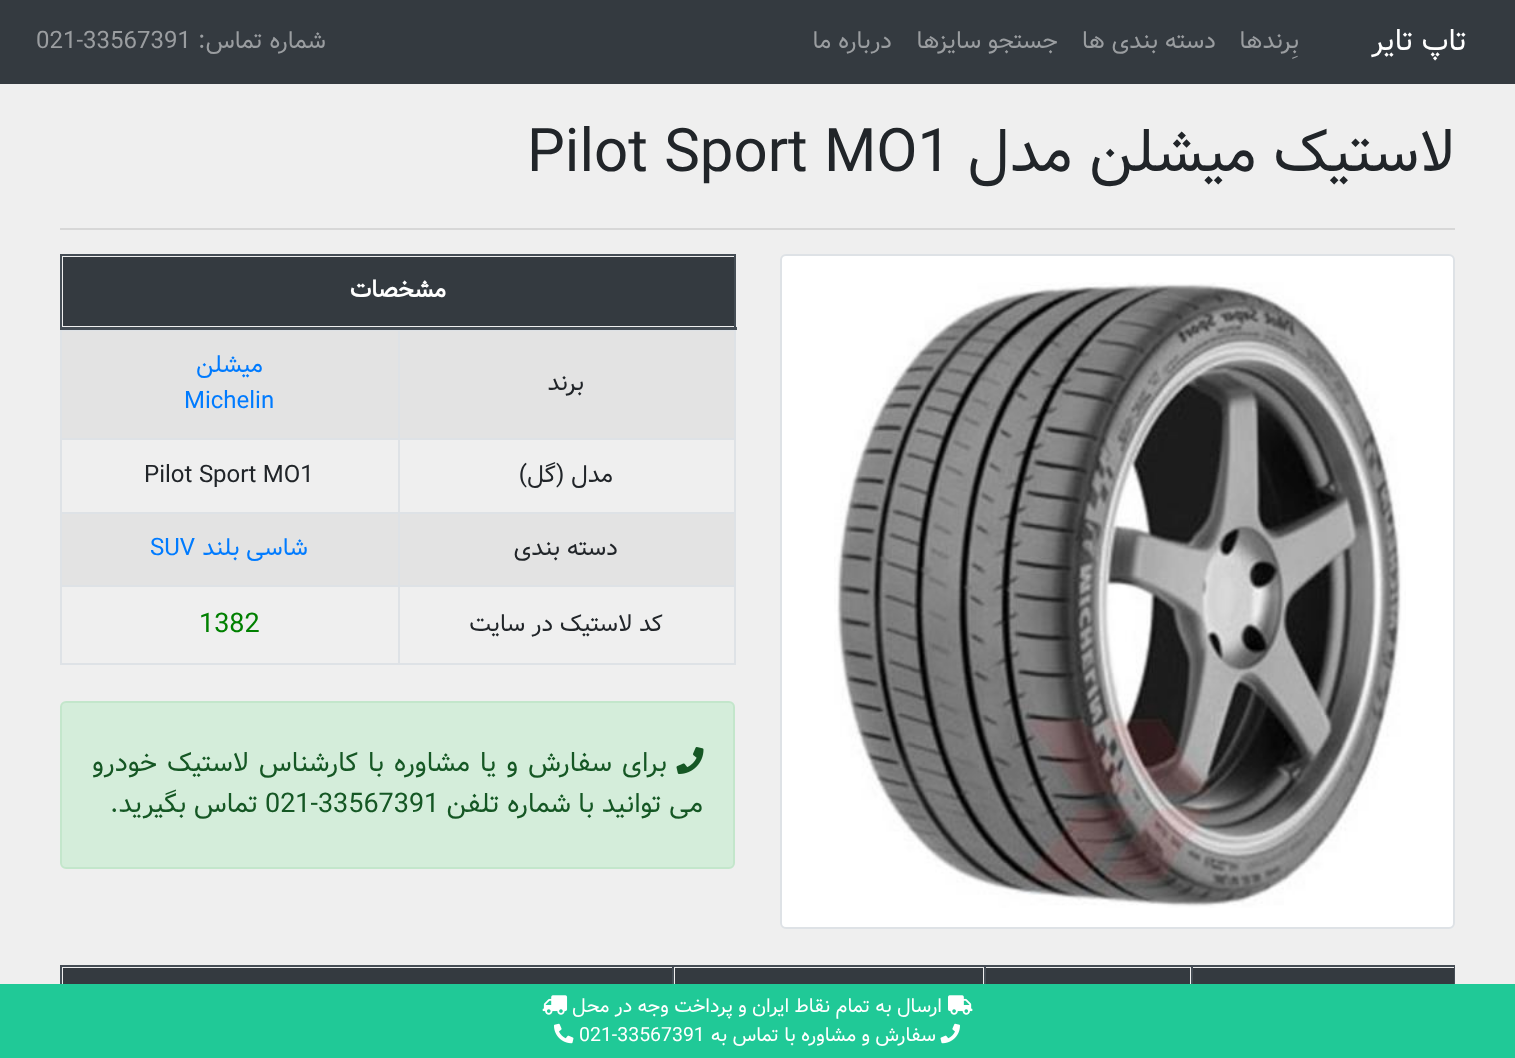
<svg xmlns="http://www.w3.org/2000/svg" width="1515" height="1058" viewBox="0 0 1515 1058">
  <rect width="100%" height="100%" fill="#efefef"/>
  <rect x="0" y="0" width="1515" height="84" fill="#343a40"/>
  <text x="1467" y="50" font-family="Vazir" font-size="30" direction="rtl" fill="#ffffff">تاپ تایر</text>
  <text x="1299" y="48" font-family="Vazir" font-size="24" direction="rtl" fill="#9a9da0">بِرندها</text>
  <text x="1216" y="48" font-family="Vazir" font-size="24" direction="rtl" fill="#9a9da0">دسته بندی ها</text>
  <text x="1058" y="48" font-family="Vazir" font-size="24" direction="rtl" fill="#9a9da0">جستجو سایزها</text>
  <text x="892" y="48" font-family="Vazir" font-size="24" direction="rtl" fill="#9a9da0">درباره ما</text>
  <text x="326" y="48" font-family="Vazir" font-size="24" direction="rtl" fill="#9a9da0">شماره تماس:</text>
  <text x="36" y="48" font-family="Vazir" font-size="24" fill="#9a9da0">021-33567391</text>
  <text x="1455" y="171" font-family="Vazir" font-size="60" direction="rtl" fill="#212529">لاستیک میشلن مدل</text>
  <text x="527" y="171" font-family="Vazir" font-size="60" fill="#212529">Pilot Sport MO1</text>
  <rect x="60" y="228" width="1395" height="2" fill="#d7d7d7"/>
  <rect x="781" y="255" width="673" height="673" rx="5" fill="#ffffff" stroke="#dee2e6" stroke-width="2"/>
  <image x="834" y="282" width="572" height="626" href="img1.png"/>
  <rect x="734" y="330" width="2" height="335" fill="#dee2e6"/>
  <rect x="60" y="663" width="675" height="2" fill="#dee2e6"/>
  <rect x="60" y="331" width="2" height="334" fill="#dee2e6"/>
  <rect x="63" y="257" width="671" height="69" fill="#343a40"/>
  <rect x="60" y="254" width="675" height="2" fill="#454d55"/>
  <rect x="734" y="254" width="2" height="76" fill="#454d55"/>
  <rect x="60" y="254" width="2" height="76" fill="#454d55"/>
  <rect x="62" y="331" width="672" height="107" fill="#e3e3e3"/>
  <rect x="60" y="330" width="339" height="1" fill="#dee2e6"/>
  <rect x="60" y="438" width="339" height="2" fill="#dee2e6"/>
  <rect x="60" y="512" width="339" height="2" fill="#dee2e6"/>
  <rect x="62" y="514" width="672" height="71" fill="#e3e3e3"/>
  <rect x="60" y="585" width="339" height="2" fill="#dee2e6"/>
  <rect x="398" y="585" width="2" height="80" fill="#dee2e6"/>
  <rect x="398" y="585" width="337" height="2" fill="#dee2e6"/>
  <rect x="398" y="512" width="2" height="75" fill="#dee2e6"/>
  <rect x="398" y="512" width="337" height="2" fill="#dee2e6"/>
  <rect x="398" y="438" width="2" height="75" fill="#dee2e6"/>
  <rect x="398" y="438" width="337" height="2" fill="#dee2e6"/>
  <rect x="398" y="329" width="2" height="111" fill="#dee2e6"/>
  <rect x="60" y="327" width="677" height="3" fill="#454d55"/>
  <text x="446" y="297" font-family="Vazir" font-size="24" font-weight="bold" direction="rtl" fill="#ffffff">مشخصات</text>
  <rect x="398" y="330" width="337" height="1" fill="#dee2e6"/>
  <text x="584" y="390" font-family="Vazir" font-size="24" direction="rtl" fill="#212529">برند</text>
  <text x="263" y="372" font-family="Vazir" font-size="24" direction="rtl" fill="#007bff">میشلن</text>
  <text x="184" y="408" font-family="Vazir" font-size="24" fill="#007bff">Michelin</text>
  <text x="613" y="482" font-family="Vazir" font-size="24" direction="rtl" fill="#212529">مدل (گل)</text>
  <text x="144" y="482" font-family="Vazir" font-size="24" fill="#212529">Pilot Sport MO1</text>
  <text x="618" y="555" font-family="Vazir" font-size="24" direction="rtl" fill="#212529">دسته بندی</text>
  <text x="308" y="555" font-family="Vazir" font-size="24" direction="rtl" fill="#007bff">شاسی بلند</text>
  <text x="150" y="555" font-family="Vazir" font-size="24" fill="#007bff">SUV</text>
  <text x="663" y="631" font-family="Vazir" font-size="24" direction="rtl" fill="#212529">کد لاستیک در سایت</text>
  <text x="199" y="632" font-family="Vazir" font-size="27" fill="#008000">1382</text>
  <rect x="61" y="702" width="673" height="166" rx="5" fill="#d4edda" stroke="#c3e6cb" stroke-width="2"/>
  <image x="676" y="747" width="28" height="27" href="img2.png"/>
  <text x="667" y="771" word-spacing="2.5" font-family="Vazir" font-size="27" direction="rtl" fill="#155724">برای سفارش و یا مشاوره با کارشناس لاستیک خودرو</text>
  <text x="703" y="812" font-family="Vazir" font-size="27" direction="rtl" fill="#155724">می توانید با شماره تلفن </text>
  <text x="265" y="812" font-family="Vazir" font-size="27" fill="#155724">021-33567391</text>
  <text x="258" y="812" font-family="Vazir" font-size="27" direction="rtl" fill="#155724">تماس بگیرید.</text>
  <rect x="1193" y="968" width="261" height="16" fill="#343a40"/>
  <rect x="60" y="965" width="614" height="2" fill="#454d55"/>
  <rect x="672" y="965" width="2" height="19" fill="#454d55"/>
  <rect x="672" y="965" width="314" height="2" fill="#454d55"/>
  <rect x="984" y="965" width="2" height="19" fill="#454d55"/>
  <rect x="984" y="965" width="209" height="2" fill="#454d55"/>
  <rect x="1191" y="965" width="2" height="19" fill="#454d55"/>
  <rect x="1191" y="965" width="264" height="2" fill="#454d55"/>
  <rect x="1454" y="965" width="1" height="19" fill="#454d55"/>
  <rect x="986" y="968" width="204" height="16" fill="#343a40"/>
  <rect x="675" y="968" width="308" height="16" fill="#343a40"/>
  <rect x="63" y="968" width="609" height="16" fill="#343a40"/>
  <rect x="60" y="965" width="2" height="19" fill="#454d55"/>
  <rect x="0" y="984" width="1515" height="74" fill="#20c997"/>
  <image x="948" y="995" width="25" height="20" href="img3.png"/>
  <text x="942" y="1012" font-family="Vazir" font-size="19.5" direction="rtl" fill="#ffffff">ارسال به تمام نقاط ایران و پرداخت وجه در محل</text>
  <image x="542" y="995" width="26" height="20" href="img4.png"/>
  <image x="940" y="1023" width="20" height="21" href="img5.png"/>
  <text x="936" y="1041" font-family="Vazir" font-size="19.5" direction="rtl" fill="#ffffff">سفارش و مشاوره با تماس به </text>
  <text x="579" y="1041" font-family="Vazir" font-size="19.5" fill="#ffffff">021-33567391</text>
  <image x="554" y="1023" width="20" height="21" href="img6.png"/>
</svg>
